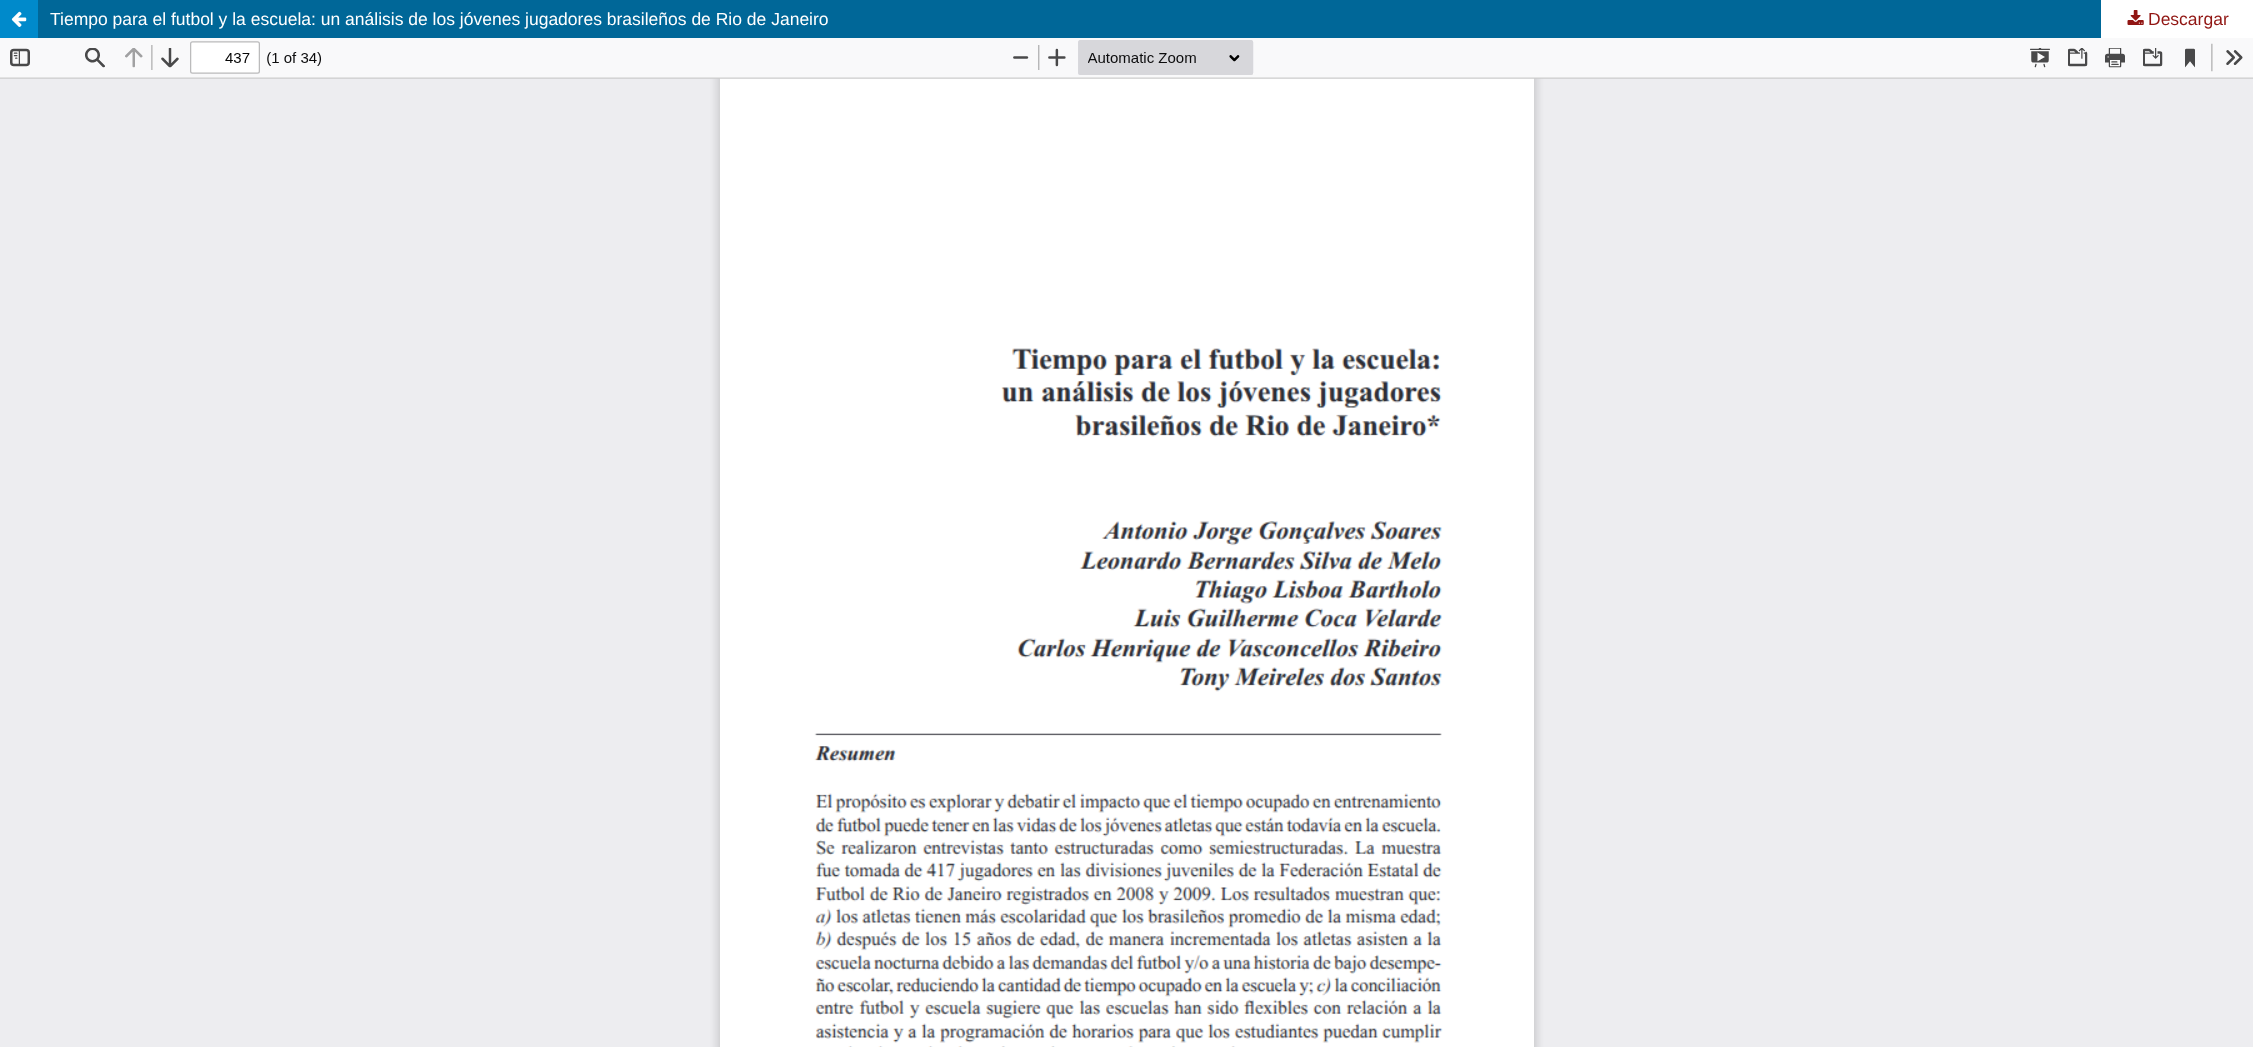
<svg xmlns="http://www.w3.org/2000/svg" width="2253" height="1047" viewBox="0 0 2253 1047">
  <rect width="100%" height="100%" fill="#ffffff"/>
  <rect x="38" y="0" width="2063" height="38" fill="#006798"/>
  <rect x="0" y="0" width="38" height="38" fill="#008acb"/>
  <image x="11" y="11" width="16" height="16" href="img1.png"/>
  <text x="50" y="25" font-family="Liberation Sans" font-size="17.5" fill="#ffffff">Tiempo para el futbol y la escuela: un análisis de los jóvenes jugadores brasileños de Rio de Janeiro</text>
  <image x="2127" y="10" width="17" height="15" href="img2.png"/>
  <text x="2148" y="25" font-family="Liberation Sans" font-size="17.5" fill="#911613">Descargar</text>
  <image x="0" y="38" width="2253" height="1009" href="img3.png"/>
</svg>
